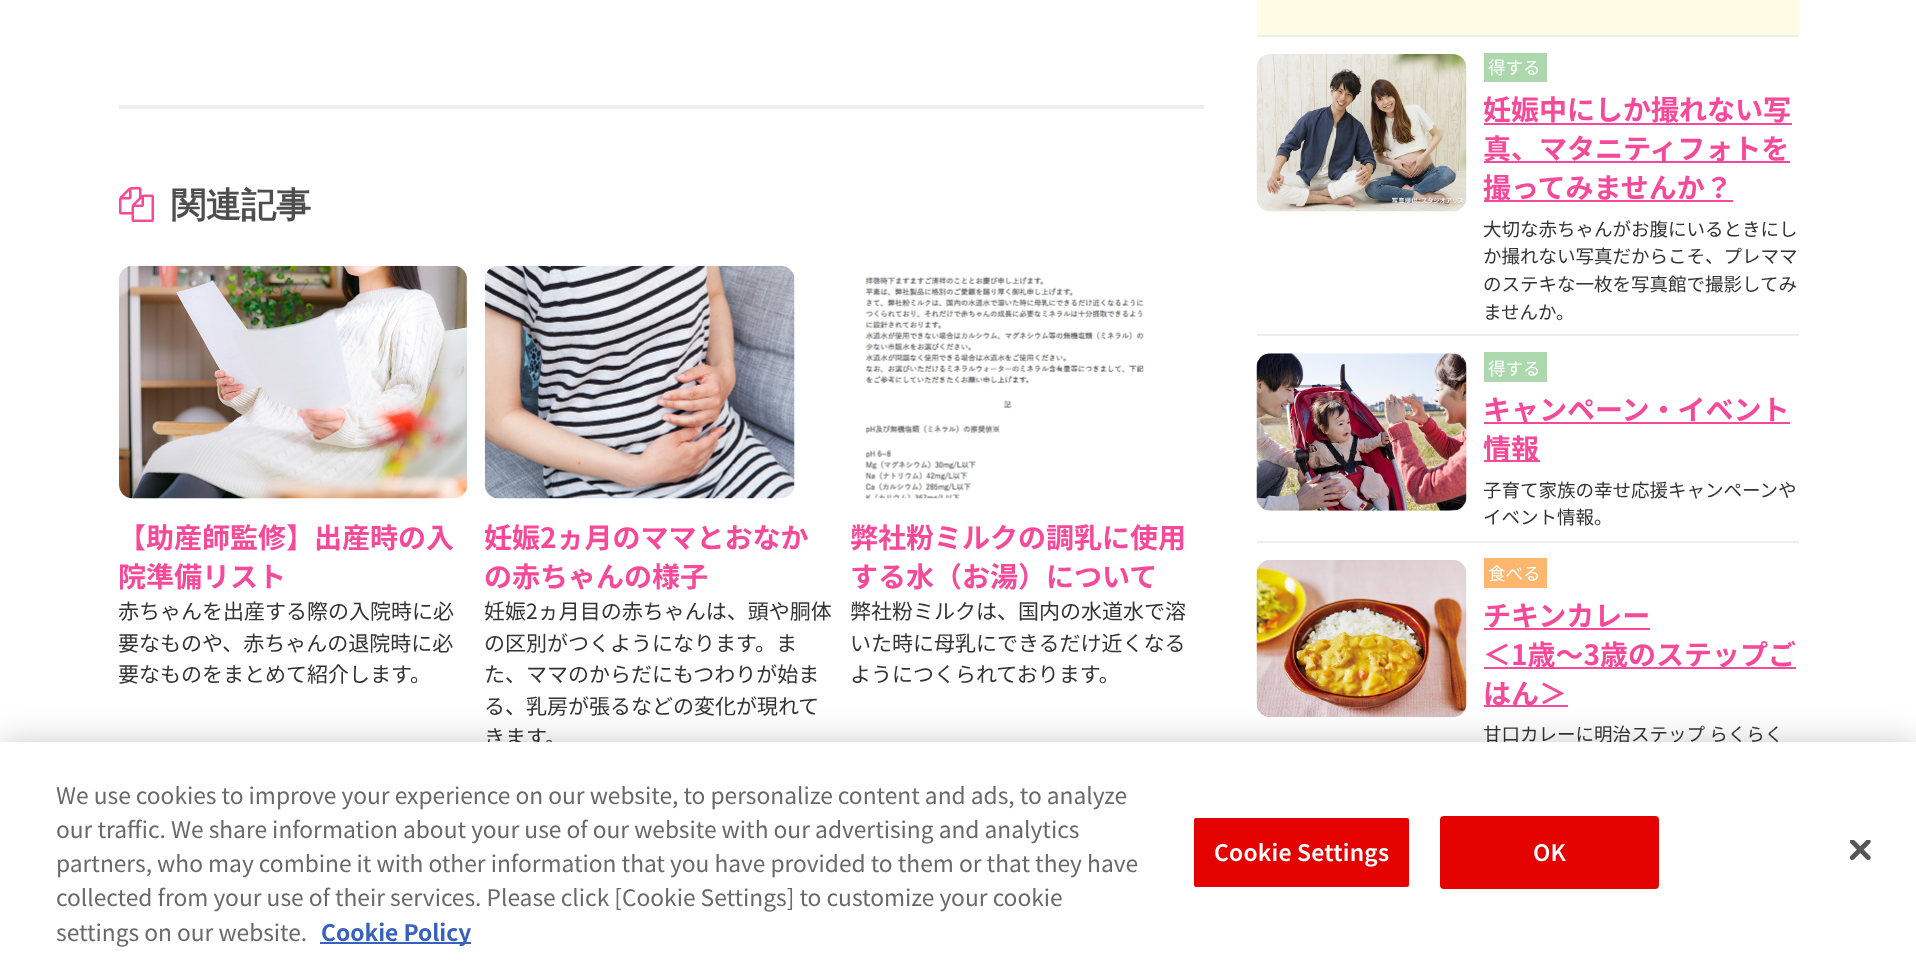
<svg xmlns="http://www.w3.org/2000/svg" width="1916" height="965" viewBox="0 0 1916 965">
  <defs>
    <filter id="blur1" x="-50%" y="-200%" width="200%" height="500%"><feGaussianBlur stdDeviation="16"/></filter>
  </defs>
  <rect width="100%" height="100%" fill="#ffffff"/>
  <rect x="119" y="105" width="1085" height="4" fill="#eeeeee"/>
  <image x="119" y="187" width="35" height="35" href="img1.png"/>
  <text x="171" y="217" font-family="WenQuanYi Zen Hei" font-size="35" font-weight="bold" fill="#4e4e4e">関連記事</text>
  <image x="119" y="265" width="349" height="234" href="img2.png"/>
  <text x="118" y="548" font-family="Noto Sans JP" font-size="28" font-weight="bold" fill="#f74999">【助産師監修】出産時の入</text>
  <text x="118" y="587" font-family="Noto Sans JP" font-size="28" font-weight="bold" fill="#f74999">院準備リスト</text>
  <text x="118" y="619" font-family="Noto Sans JP" font-size="21" fill="#343434">赤ちゃんを出産する際の入院時に必</text>
  <text x="118" y="651" font-family="Noto Sans JP" font-size="21" fill="#343434">要なものや、赤ちゃんの退院時に必</text>
  <text x="118" y="682" font-family="Noto Sans JP" font-size="21" fill="#343434">要なものをまとめて紹介します。</text>
  <image x="484" y="265" width="311" height="234" href="img3.png"/>
  <text x="484" y="548" font-family="Noto Sans JP" font-size="28" font-weight="bold" fill="#f74999">妊娠2ヵ月のママとおなか</text>
  <text x="484" y="587" font-family="Noto Sans JP" font-size="28" font-weight="bold" fill="#f74999">の赤ちゃんの様子</text>
  <text x="484" y="619" font-family="Noto Sans JP" font-size="21" fill="#343434">妊娠2ヵ月目の赤ちゃんは、頭や胴体</text>
  <text x="484" y="651" font-family="Noto Sans JP" font-size="21" fill="#343434">の区別がつくようになります。ま</text>
  <text x="484" y="682" font-family="Noto Sans JP" font-size="21" fill="#343434">た、ママのからだにもつわりが始ま</text>
  <text x="484" y="714" font-family="Noto Sans JP" font-size="21" fill="#343434">る、乳房が張るなどの変化が現れて</text>
  <text x="484" y="745" font-family="Noto Sans JP" font-size="21" fill="#343434">きます。</text>
  <image x="865" y="276" width="280" height="223" href="img4.png"/>
  <text x="850" y="548" font-family="Noto Sans JP" font-size="28" font-weight="bold" fill="#f74999">弊社粉ミルクの調乳に使用</text>
  <text x="850" y="587" font-family="Noto Sans JP" font-size="28" font-weight="bold" fill="#f74999">する水（お湯）について</text>
  <text x="850" y="619" font-family="Noto Sans JP" font-size="21" fill="#343434">弊社粉ミルクは、国内の水道水で溶</text>
  <text x="850" y="651" font-family="Noto Sans JP" font-size="21" fill="#343434">いた時に母乳にできるだけ近くなる</text>
  <text x="850" y="682" font-family="Noto Sans JP" font-size="21" fill="#343434">ようにつくられております。</text>
  <rect x="1257" y="0" width="542" height="35" fill="#fffbe5"/>
  <rect x="1257" y="35" width="542" height="2" fill="#eeeeee"/>
  <rect x="1257" y="334" width="542" height="2" fill="#eeeeee"/>
  <image x="1256" y="54" width="211" height="158" href="img5.png"/>
  <rect x="1484" y="53" width="63" height="29" fill="#add8ae"/>
  <text x="1488" y="74" font-family="Noto Sans JP" font-size="17.5" fill="#ffffff">得する</text>
  <text x="1483" y="120" font-family="Noto Sans JP" font-size="28" font-weight="bold" fill="#f74999">妊娠中にしか撮れない写</text>
  <rect x="1484" y="123" width="308" height="2" fill="#f74999"/>
  <rect x="1484" y="161" width="306" height="2" fill="#f74999"/>
  <text x="1483" y="159" font-family="Noto Sans JP" font-size="28" font-weight="bold" fill="#f74999">真、マタニティフォトを</text>
  <rect x="1484" y="200" width="249" height="2" fill="#f74999"/>
  <text x="1483" y="198" font-family="Noto Sans JP" font-size="28" font-weight="bold" fill="#f74999">撮ってみませんか？</text>
  <text x="1483" y="236" font-family="Noto Sans JP" font-size="18.5" fill="#343434">大切な赤ちゃんがお腹にいるときにし</text>
  <text x="1483" y="263" font-family="Noto Sans JP" font-size="18.5" fill="#343434">か撮れない写真だからこそ、プレママ</text>
  <text x="1483" y="291" font-family="Noto Sans JP" font-size="18.5" fill="#343434">のステキな一枚を写真館で撮影してみ</text>
  <text x="1483" y="319" font-family="Noto Sans JP" font-size="18.5" fill="#343434">ませんか。</text>
  <rect x="1257" y="541" width="542" height="2" fill="#eeeeee"/>
  <image x="1256" y="353" width="211" height="158" href="img6.png"/>
  <rect x="1484" y="352" width="63" height="30" fill="#add8ae"/>
  <text x="1488" y="375" font-family="Noto Sans JP" font-size="17.5" fill="#ffffff">得する</text>
  <rect x="1484" y="422" width="306" height="2" fill="#f74999"/>
  <text x="1483" y="420" font-family="Noto Sans JP" font-size="28" font-weight="bold" fill="#f74999">キャンペーン・イベント</text>
  <rect x="1484" y="460" width="56" height="2" fill="#f74999"/>
  <text x="1483" y="459" font-family="Noto Sans JP" font-size="28" font-weight="bold" fill="#f74999">情報</text>
  <text x="1483" y="497" font-family="Noto Sans JP" font-size="18.5" fill="#343434">子育て家族の幸せ応援キャンペーンや</text>
  <text x="1483" y="524" font-family="Noto Sans JP" font-size="18.5" fill="#343434">イベント情報。</text>
  <image x="1256" y="560" width="211" height="158" href="img7.png"/>
  <rect x="1484" y="558" width="63" height="30" fill="#ffb66e"/>
  <text x="1488" y="580" font-family="Noto Sans JP" font-size="17.5" fill="#ffffff">食べる</text>
  <text x="1483" y="626" font-family="Noto Sans JP" font-size="28" font-weight="bold" fill="#f74999">チキンカレー</text>
  <rect x="1484" y="628" width="166" height="2" fill="#f74999"/>
  <rect x="1484" y="667" width="312" height="2" fill="#f74999"/>
  <text x="1483" y="665" font-family="Noto Sans JP" font-size="28" font-weight="bold" fill="#f74999">＜1歳〜3歳のステップご</text>
  <rect x="1484" y="705" width="84" height="2" fill="#f74999"/>
  <text x="1483" y="704" font-family="Noto Sans JP" font-size="28" font-weight="bold" fill="#f74999">はん＞</text>
  <text x="1483" y="741" font-family="Noto Sans JP" font-size="18.5" fill="#343434">甘口カレーに明治ステップ らくらく</text>
  <rect x="0" y="742" width="1916" height="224" fill="#000000" fill-opacity="0.2" filter="url(#blur1)"/>
  <rect x="0" y="742" width="1916" height="223" fill="#ffffff"/>
  <text x="56" y="804" font-family="Noto Sans JP" font-size="22.75" fill="#696969">We use cookies to improve your experience on our website, to personalize content and ads, to analyze</text>
  <text x="56" y="838" font-family="Noto Sans JP" font-size="22.75" fill="#696969">our traffic. We share information about your use of our website with our advertising and analytics</text>
  <text x="56" y="872" font-family="Noto Sans JP" font-size="22.75" fill="#696969">partners, who may combine it with other information that you have provided to them or that they have</text>
  <text x="56" y="906" font-family="Noto Sans JP" font-size="22.75" fill="#696969">collected from your use of their services. Please click [Cookie Settings] to customize your cookie</text>
  <text x="56" y="941" font-family="Noto Sans JP" font-size="22.75" fill="#696969">settings on our website.</text>
  <rect x="320" y="942" width="151" height="2" fill="#3860be"/>
  <text x="321" y="941" font-family="Noto Sans JP" font-size="22.75" font-weight="bold" fill="#3860be">Cookie Policy</text>
  <rect x="1193" y="817" width="217" height="71" rx="3" fill="#e30200" stroke="#ffffff" stroke-width="2"/>
  <text x="1214" y="861" font-family="Noto Sans JP" font-size="22.75" font-weight="600" letter-spacing="0.25" fill="#ffffff">Cookie Settings</text>
  <rect x="1441" y="817" width="217" height="71" rx="3" fill="#e30200" stroke="#e30200" stroke-width="2"/>
  <text x="1533" y="861" font-family="Noto Sans JP" font-size="22.75" font-weight="600" letter-spacing="0.25" fill="#ffffff">OK</text>
  <image x="1850" y="840" width="21" height="21" href="img8.png"/>
</svg>
